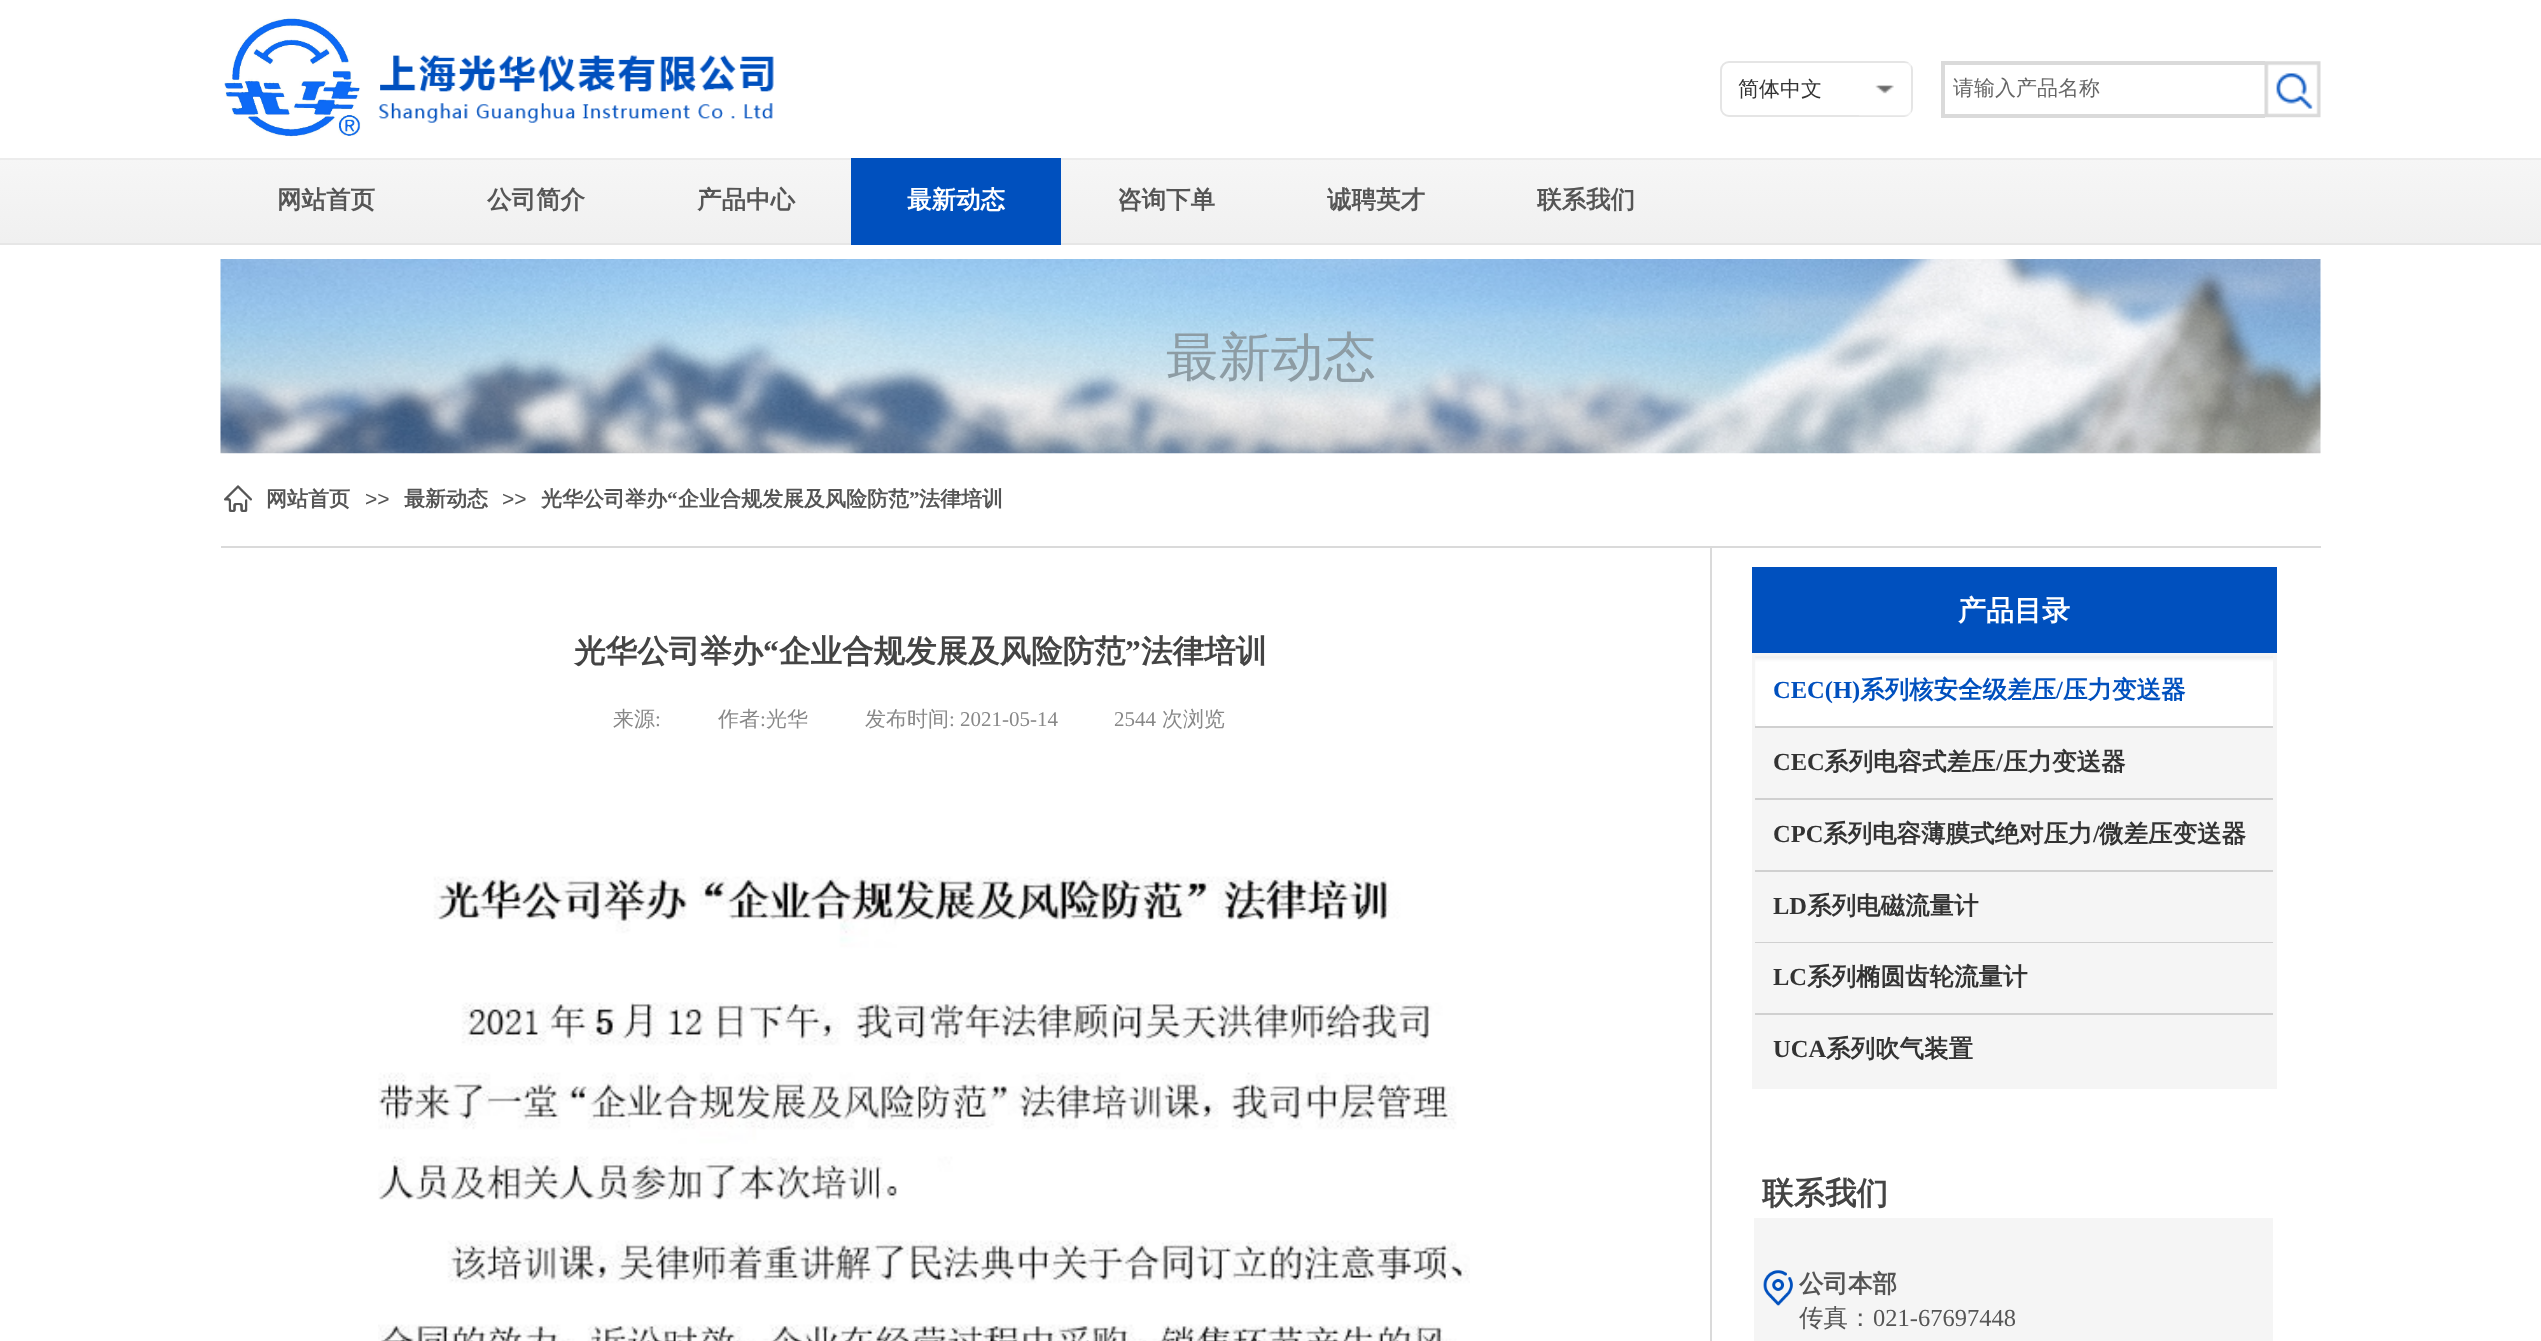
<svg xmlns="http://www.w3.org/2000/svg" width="2541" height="1341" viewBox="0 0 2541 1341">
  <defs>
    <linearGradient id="g1" gradientUnits="userSpaceOnUse" x1="1271" y1="243" x2="1271" y2="159"><stop offset="0" stop-color="#f0f0f0"/><stop offset="1" stop-color="#f6f6f6"/></linearGradient>
  </defs>
  <rect width="100%" height="100%" fill="#ffffff"/>
  <image x="224" y="17" width="137" height="121" href="img1.png"/>
  <image x="378" y="55" width="396" height="68" href="img2.png"/>
  <rect x="1721" y="62" width="191" height="54" rx="8" fill="none" stroke="#e5e5e5" stroke-width="2"/>
  <text x="1738" y="96" font-family="WenQuanYi Zen Hei" font-size="21" font-weight="500" fill="#333333">简体中文</text>
  <image x="1859" y="63" width="52" height="53" href="img3.png"/>
  <rect x="1941" y="61" width="324" height="4" fill="#dadada"/>
  <rect x="1941" y="114" width="324" height="4" fill="#dadada"/>
  <rect x="1941" y="61" width="4" height="56" fill="#dadada"/>
  <text x="1953" y="95" font-family="WenQuanYi Zen Hei" font-size="21" font-weight="500" fill="#666666">请输入产品名称</text>
  <image x="2264" y="61" width="57" height="57" href="img4.png"/>
  <rect x="0" y="160" width="2541" height="83" fill="url(#g1)"/>
  <rect x="0" y="158" width="2541" height="2" fill="#ececec"/>
  <rect x="0" y="243" width="2541" height="2" fill="#e6e6e6"/>
  <text x="277" y="208" font-family="WenQuanYi Zen Hei" font-size="24.5" font-weight="bold" fill="#555555">网站首页</text>
  <text x="487" y="208" font-family="WenQuanYi Zen Hei" font-size="24.5" font-weight="bold" fill="#555555">公司简介</text>
  <text x="697" y="208" font-family="WenQuanYi Zen Hei" font-size="24.5" font-weight="bold" fill="#555555">产品中心</text>
  <rect x="851" y="158" width="210" height="87" fill="#0050be"/>
  <text x="907" y="208" font-family="WenQuanYi Zen Hei" font-size="24.5" font-weight="bold" fill="#ffffff">最新动态</text>
  <text x="1117" y="208" font-family="WenQuanYi Zen Hei" font-size="24.5" font-weight="bold" fill="#555555">咨询下单</text>
  <text x="1327" y="208" font-family="WenQuanYi Zen Hei" font-size="24.5" font-weight="bold" fill="#555555">诚聘英才</text>
  <text x="1537" y="208" font-family="WenQuanYi Zen Hei" font-size="24.5" font-weight="bold" fill="#555555">联系我们</text>
  <image x="220" y="259" width="2101" height="195" href="img5.png"/>
  <text x="1166" y="375" font-family="WenQuanYi Zen Hei" font-size="52.5" font-weight="500" fill="#8d9ca4">最新动态</text>
  <image x="224" y="485" width="28" height="27" href="img6.png"/>
  <text x="266" y="506" font-family="WenQuanYi Zen Hei" font-size="21" font-weight="bold" fill="#555555">网站首页</text>
  <text x="365" y="506" font-family="Liberation Sans" font-size="21" fill="#555555">&gt;&gt;</text>
  <text x="404" y="506" font-family="WenQuanYi Zen Hei" font-size="21" font-weight="bold" fill="#555555">最新动态</text>
  <text x="502" y="506" font-family="Liberation Sans" font-size="21" fill="#555555">&gt;&gt;</text>
  <text x="541" y="506" font-family="WenQuanYi Zen Hei" font-size="21" font-weight="bold" fill="#555555">光华公司举办</text>
  <text x="667" y="506" font-family="Liberation Serif" font-size="21" font-weight="bold" fill="#555555">“</text>
  <text x="678" y="506" font-family="WenQuanYi Zen Hei" font-size="21" font-weight="bold" fill="#555555">企业合规发展及风险防范</text>
  <text x="909" y="506" font-family="Liberation Serif" font-size="21" font-weight="bold" fill="#555555">”</text>
  <text x="919" y="506" font-family="WenQuanYi Zen Hei" font-size="21" font-weight="bold" fill="#555555">法律培训</text>
  <rect x="221" y="546" width="2100" height="2" fill="#dadada"/>
  <rect x="1710" y="546" width="2" height="795" fill="#dadada"/>
  <rect x="1752" y="567" width="525" height="86" fill="#0050be"/>
  <text x="1958" y="620" font-family="WenQuanYi Zen Hei" font-size="28" font-weight="bold" fill="#ffffff">产品目录</text>
  <text x="574" y="662" font-family="WenQuanYi Zen Hei" font-size="31.5" font-weight="bold" fill="#444444">光华公司举办</text>
  <text x="763" y="662" font-family="Liberation Serif" font-size="31.5" font-weight="bold" fill="#444444">“</text>
  <text x="779" y="662" font-family="WenQuanYi Zen Hei" font-size="31.5" font-weight="bold" fill="#444444">企业合规发展及风险防范</text>
  <text x="1125" y="662" font-family="Liberation Serif" font-size="31.5" font-weight="bold" fill="#444444">”</text>
  <text x="1141" y="662" font-family="WenQuanYi Zen Hei" font-size="31.5" font-weight="bold" fill="#444444">法律培训</text>
  <text x="613" y="726" font-family="WenQuanYi Zen Hei" font-size="21" font-weight="500" fill="#888888">来源</text>
  <text x="655" y="726" font-family="Liberation Serif" font-size="21" fill="#888888">:</text>
  <text x="718" y="726" font-family="WenQuanYi Zen Hei" font-size="21" font-weight="500" fill="#888888">作者</text>
  <text x="760" y="726" font-family="Liberation Serif" font-size="21" fill="#888888">:</text>
  <text x="766" y="726" font-family="WenQuanYi Zen Hei" font-size="21" font-weight="500" fill="#888888">光华</text>
  <text x="865" y="726" font-family="WenQuanYi Zen Hei" font-size="21" font-weight="500" fill="#888888">发布时间</text>
  <text x="949" y="726" font-family="Liberation Serif" font-size="21" fill="#888888">: 2021-05-14</text>
  <text x="1114" y="726" font-family="Liberation Serif" font-size="21" fill="#888888">2544</text>
  <text x="1162" y="726" font-family="WenQuanYi Zen Hei" font-size="21" font-weight="500" fill="#888888">次浏览</text>
  <image x="378" y="876" width="1092" height="465" href="img7.png"/>
  <rect x="1754" y="655" width="521" height="432" fill="none" stroke="#f5f5f5" stroke-width="4"/>
  <image x="1755" y="656" width="518" height="68" href="img8.png"/>
  <rect x="1755" y="726" width="518" height="2" fill="#d0d0d0"/>
  <text x="1773" y="698" font-family="Liberation Serif" font-size="24.5" font-weight="bold" fill="#0050be">CEC(H)</text>
  <text x="1860" y="698" font-family="WenQuanYi Zen Hei" font-size="24.5" font-weight="bold" fill="#0050be">系列核安全级差压</text>
  <text x="2056" y="698" font-family="Liberation Serif" font-size="24.5" font-weight="bold" fill="#0050be">/</text>
  <text x="2063" y="698" font-family="WenQuanYi Zen Hei" font-size="24.5" font-weight="bold" fill="#0050be">压力变送器</text>
  <rect x="1756" y="728" width="517" height="70" fill="#f5f5f5"/>
  <rect x="1755" y="798" width="518" height="2" fill="#d0d0d0"/>
  <text x="1773" y="770" font-family="Liberation Serif" font-size="24.5" font-weight="bold" fill="#333333">CEC</text>
  <text x="1824" y="770" font-family="WenQuanYi Zen Hei" font-size="24.5" font-weight="bold" fill="#333333">系列电容式差压</text>
  <text x="1996" y="770" font-family="Liberation Serif" font-size="24.5" font-weight="bold" fill="#333333">/</text>
  <text x="2003" y="770" font-family="WenQuanYi Zen Hei" font-size="24.5" font-weight="bold" fill="#333333">压力变送器</text>
  <rect x="1756" y="800" width="517" height="70" fill="#f5f5f5"/>
  <rect x="1755" y="870" width="518" height="2" fill="#d0d0d0"/>
  <text x="1773" y="842" font-family="Liberation Serif" font-size="24.5" font-weight="bold" fill="#333333">CPC</text>
  <text x="1823" y="842" font-family="WenQuanYi Zen Hei" font-size="24.5" font-weight="bold" fill="#333333">系列电容薄膜式绝对压力</text>
  <text x="2093" y="842" font-family="Liberation Serif" font-size="24.5" font-weight="bold" fill="#333333">/</text>
  <text x="2099" y="842" font-family="WenQuanYi Zen Hei" font-size="24.5" font-weight="bold" fill="#333333">微差压变送器</text>
  <rect x="1756" y="872" width="517" height="70" fill="#f5f5f5"/>
  <rect x="1755" y="942" width="518" height="1" fill="#d0d0d0"/>
  <text x="1773" y="914" font-family="Liberation Serif" font-size="24.5" font-weight="bold" fill="#333333">LD</text>
  <text x="1807" y="914" font-family="WenQuanYi Zen Hei" font-size="24.5" font-weight="bold" fill="#333333">系列电磁流量计</text>
  <rect x="1756" y="943" width="517" height="70" fill="#f5f5f5"/>
  <rect x="1755" y="1013" width="518" height="2" fill="#d0d0d0"/>
  <text x="1773" y="985" font-family="Liberation Serif" font-size="24.5" font-weight="bold" fill="#333333">LC</text>
  <text x="1807" y="985" font-family="WenQuanYi Zen Hei" font-size="24.5" font-weight="bold" fill="#333333">系列椭圆齿轮流量计</text>
  <rect x="1756" y="1015" width="517" height="70" fill="#f5f5f5"/>
  <text x="1773" y="1057" font-family="Liberation Serif" font-size="24.5" font-weight="bold" fill="#333333">UCA</text>
  <text x="1826" y="1057" font-family="WenQuanYi Zen Hei" font-size="24.5" font-weight="bold" fill="#333333">系列吹气装置</text>
  <text x="1762" y="1204" font-family="WenQuanYi Zen Hei" font-size="31.5" font-weight="bold" fill="#444444">联系我们</text>
  <rect x="1754" y="1218" width="519" height="123" fill="#f5f5f5"/>
  <image x="1763" y="1270" width="30" height="36" href="img9.png"/>
  <text x="1799" y="1292" font-family="WenQuanYi Zen Hei" font-size="24.5" font-weight="bold" fill="#555555">公司本部</text>
  <text x="1799" y="1326" font-family="WenQuanYi Zen Hei" font-size="24.5" font-weight="500" fill="#555555">传真：</text>
  <text x="1873" y="1326" font-family="Liberation Serif" font-size="24.5" fill="#555555">021-67697448</text>
</svg>
